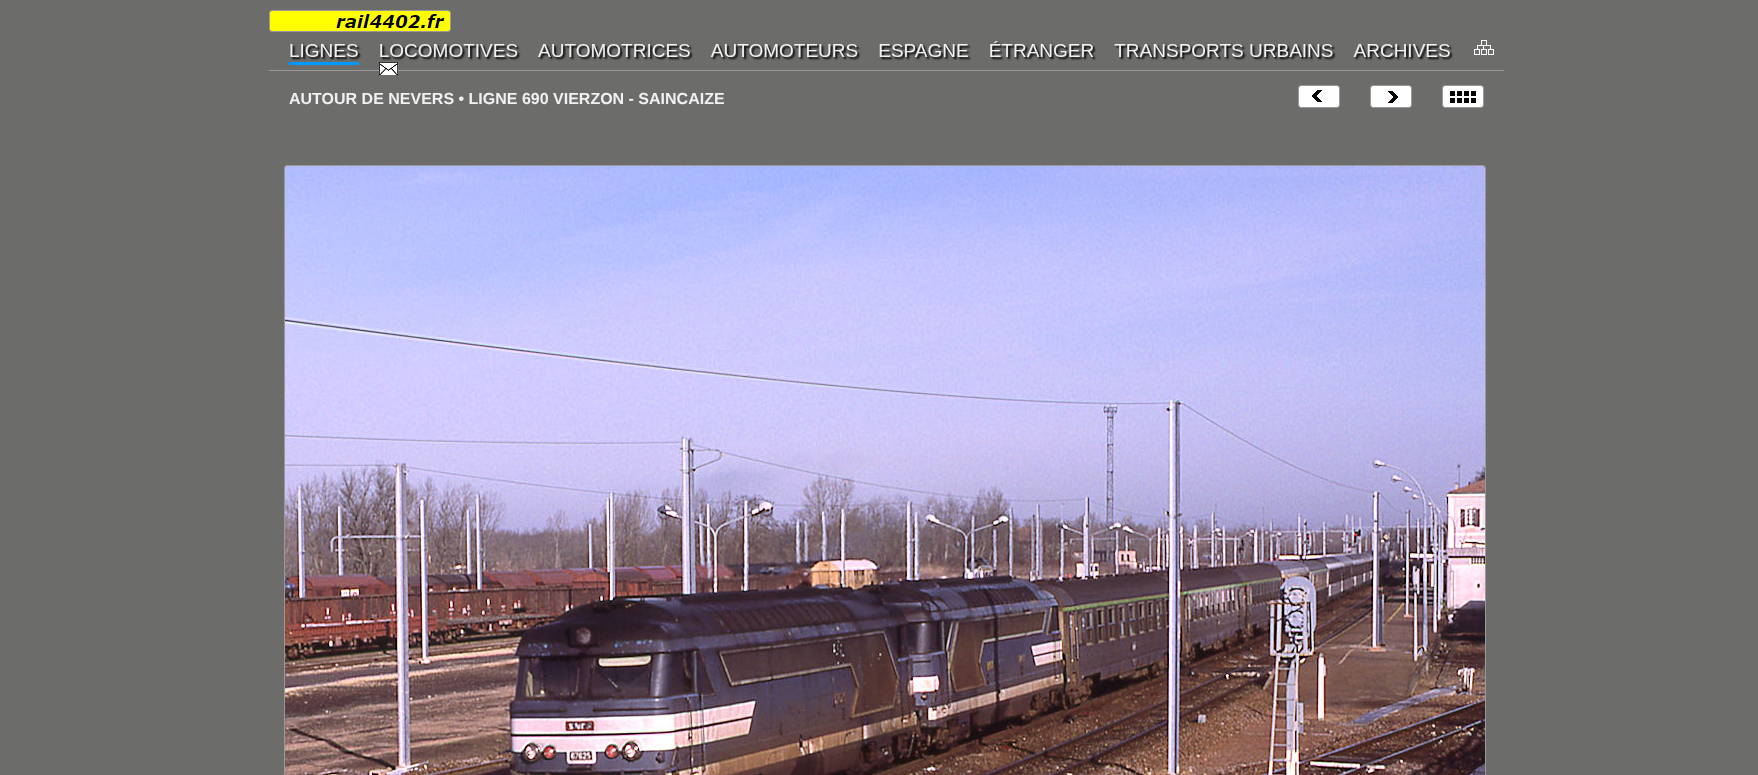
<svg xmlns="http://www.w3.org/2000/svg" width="1758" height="775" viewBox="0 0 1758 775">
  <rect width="100%" height="100%" fill="#6c6c6b"/>
  <image x="269" y="10" width="1235" height="65" href="img1.png"/>
  <text x="289" y="104" font-family="Liberation Sans" font-size="16" font-weight="bold" fill="#f1f1f1">AUTOUR DE NEVERS • LIGNE 690 VIERZON - SAINCAIZE</text>
  <rect x="1298.5" y="85.5" width="41" height="22" rx="2.5" fill="none" stroke="#999999"/>
  <image x="1299" y="86" width="40" height="21" href="img2.png"/>
  <rect x="1370.5" y="85.5" width="41" height="22" rx="2.5" fill="none" stroke="#999999"/>
  <image x="1371" y="86" width="40" height="21" href="img3.png"/>
  <rect x="1442.5" y="85.5" width="41" height="22" rx="2.5" fill="none" stroke="#999999"/>
  <image x="1443" y="86" width="40" height="21" href="img4.png"/>
  <rect x="284.5" y="165.5" width="1201" height="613" rx="2.5" fill="none" stroke="#999999"/>
  <image x="285" y="166" width="1200" height="609" href="img5.png"/>
</svg>
